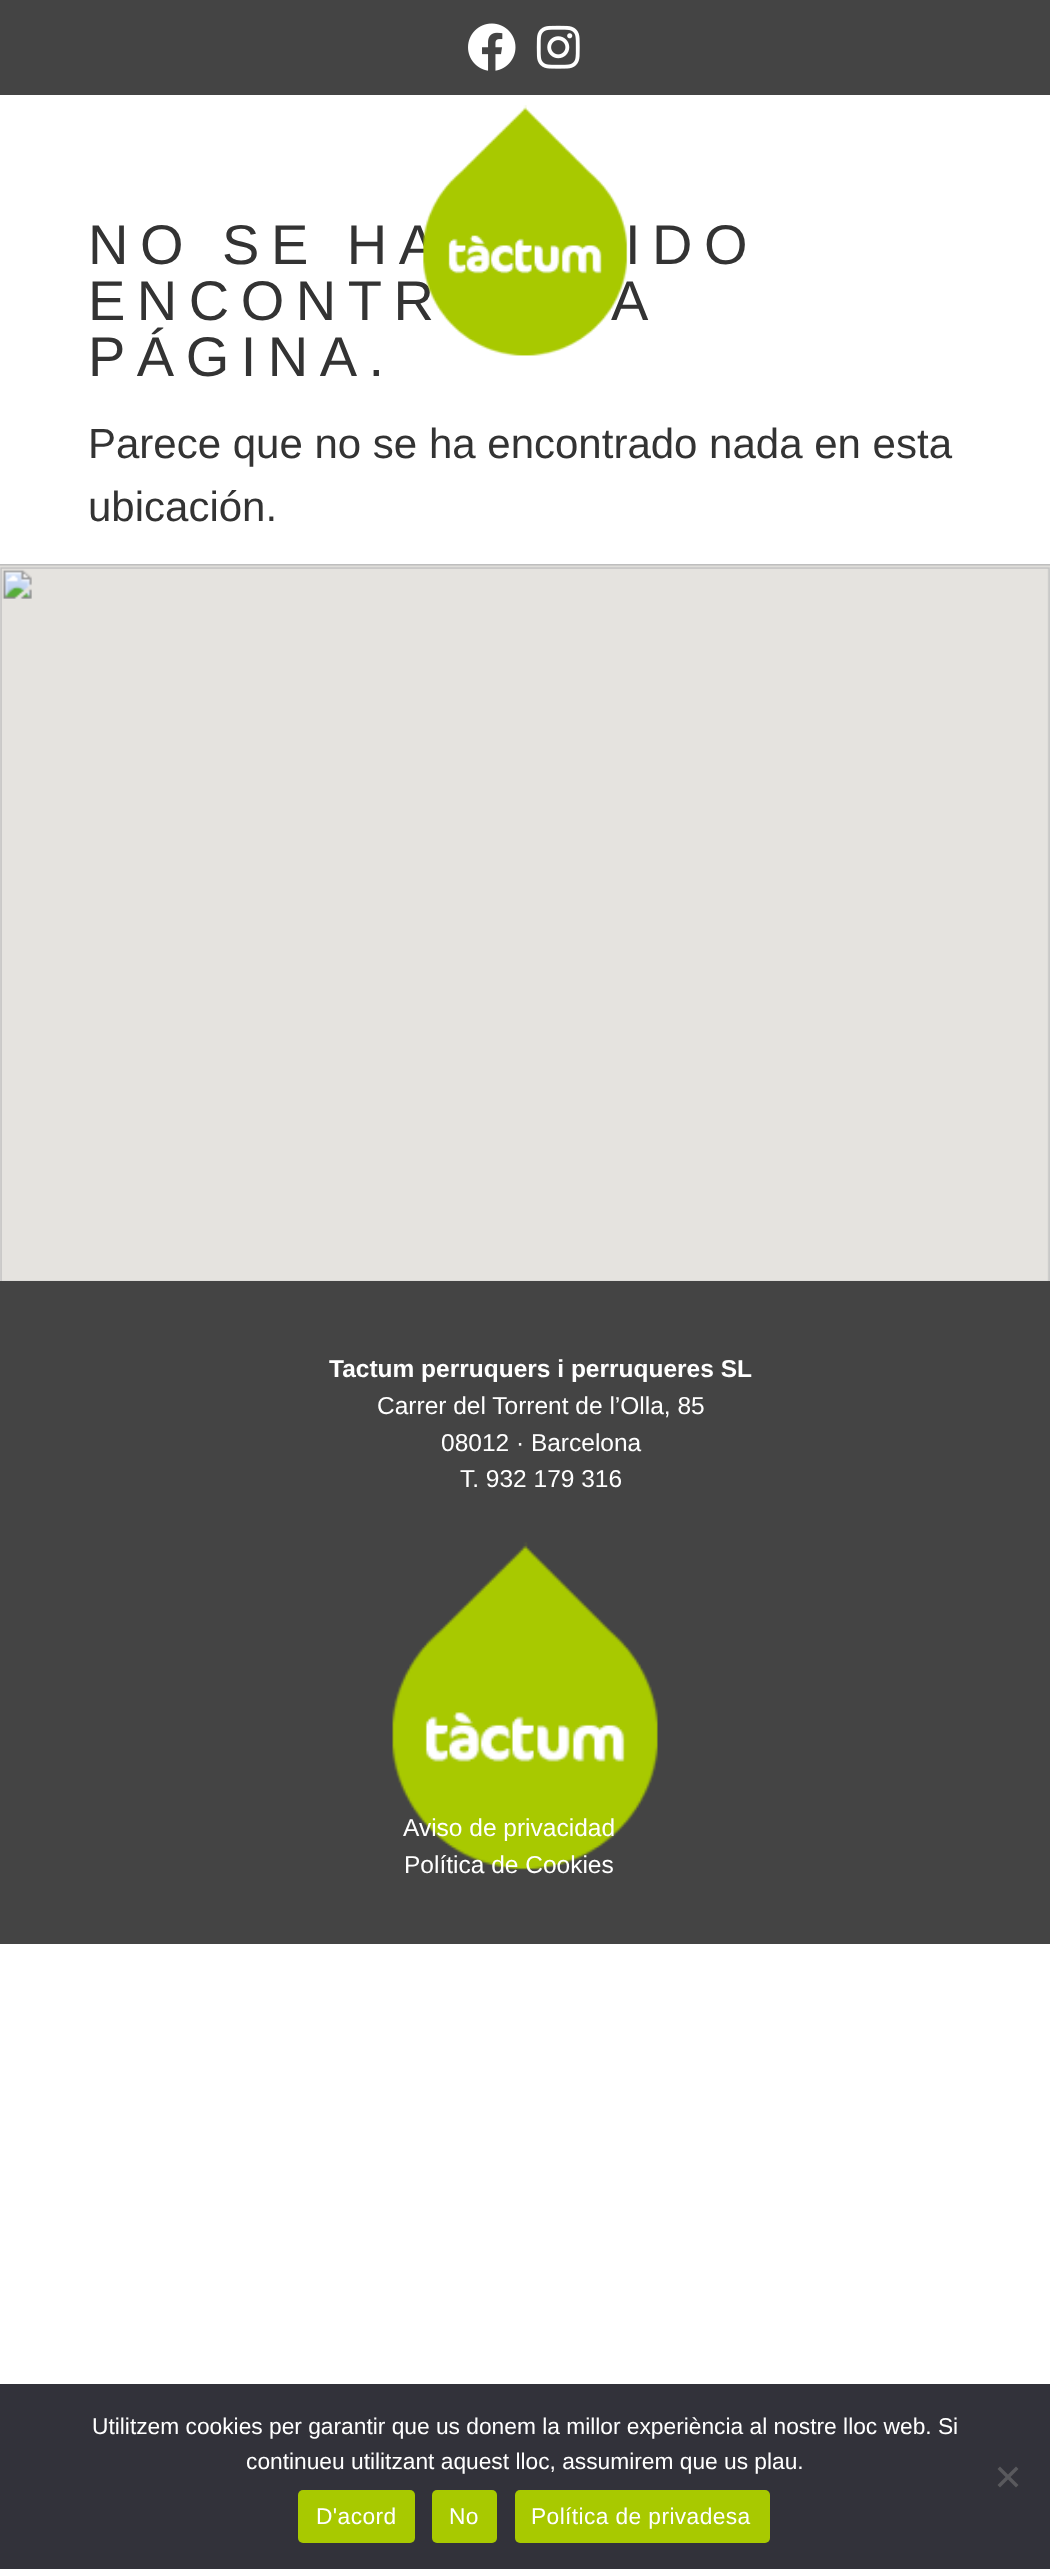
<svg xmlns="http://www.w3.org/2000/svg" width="1050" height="2569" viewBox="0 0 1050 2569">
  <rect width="100%" height="100%" fill="#ffffff"/>
  <rect x="0" y="0" width="1050" height="95" fill="#444444"/>
  <image x="468" y="23" width="48" height="48" href="img1.png"/>
  <image x="536" y="25" width="44" height="44" href="img2.png"/>
  <text x="88" y="264" font-family="Liberation Sans" font-size="56" letter-spacing="11.5" fill="#333333">NO SE HA</text>
  <text x="88" y="320" word-spacing="-3" font-family="Liberation Sans" font-size="56" letter-spacing="11.5" fill="#333333">ENCONTR</text>
  <text x="611" y="320" word-spacing="-3" font-family="Liberation Sans" font-size="56" letter-spacing="11.5" fill="#333333">A</text>
  <image x="423" y="105" width="205" height="251" href="img3.png"/>
  <text x="625" y="264" font-family="Liberation Sans" font-size="56" letter-spacing="11.5" fill="#333333">IDO</text>
  <text x="88" y="376" font-family="Liberation Sans" font-size="56" letter-spacing="11.5" fill="#333333">PÁGINA.</text>
  <text x="88" y="458" font-family="Liberation Sans" font-size="42" fill="#333333">Parece que no se ha encontrado nada en esta</text>
  <text x="88" y="521" font-family="Liberation Sans" font-size="42" fill="#333333">ubicación.</text>
  <rect x="0" y="564" width="1050" height="2" fill="#bebebe"/>
  <image x="0" y="565" width="1050" height="716" href="img4.png"/>
  <rect x="0" y="1281" width="1050" height="663" fill="#444444"/>
  <text x="329" y="1377" font-family="Liberation Sans" font-size="24.5" font-weight="bold" fill="#ffffff">Tactum perruquers i perruqueres SL</text>
  <text x="377" y="1414" font-family="Liberation Sans" font-size="24.5" fill="#ffffff">Carrer del Torrent de l’Olla, 85</text>
  <text x="441" y="1451" font-family="Liberation Sans" font-size="24.5" fill="#ffffff">08012 · Barcelona</text>
  <text x="460" y="1487" font-family="Liberation Sans" font-size="24.5" fill="#ffffff">T. 932 179 316</text>
  <image x="392" y="1542" width="266" height="328" href="img5.png"/>
  <text x="403" y="1836" font-family="Liberation Sans" font-size="24.5" fill="#ffffff">Aviso de privacidad</text>
  <text x="404" y="1873" font-family="Liberation Sans" font-size="24.5" fill="#ffffff">Política de Cookies</text>
  <rect x="0" y="2384" width="1050" height="185" fill="#32323a"/>
  <text x="92" y="2434" font-family="Liberation Sans" font-size="22.75" fill="#ffffff">Utilitzem cookies per garantir que us donem la millor experiència al nostre lloc web. Si</text>
  <text x="246" y="2469" font-family="Liberation Sans" font-size="22.75" fill="#ffffff">continueu utilitzant aquest lloc, assumirem que us plau.</text>
  <path d="M1016 2466.5L1018.5 2469L1000 2487.5L997.5 2485Z" fill="#59595d"/>
  <path d="M997.5 2469L1000 2466.5L1018.5 2485L1016 2487.5Z" fill="#59595d"/>
  <rect x="298" y="2490" width="117" height="53" rx="5" fill="#a8c900"/>
  <text x="316" y="2524" font-family="Liberation Sans" font-size="22.75" letter-spacing="0.4" fill="#ffffff">D'acord</text>
  <rect x="432" y="2490" width="65" height="53" rx="5" fill="#a8c900"/>
  <text x="449" y="2524" font-family="Liberation Sans" font-size="22.75" letter-spacing="0.4" fill="#ffffff">No</text>
  <rect x="515" y="2490" width="255" height="53" rx="5" fill="#a8c900"/>
  <text x="531" y="2524" font-family="Liberation Sans" font-size="22.75" letter-spacing="0.4" fill="#ffffff">Política de privadesa</text>
</svg>
